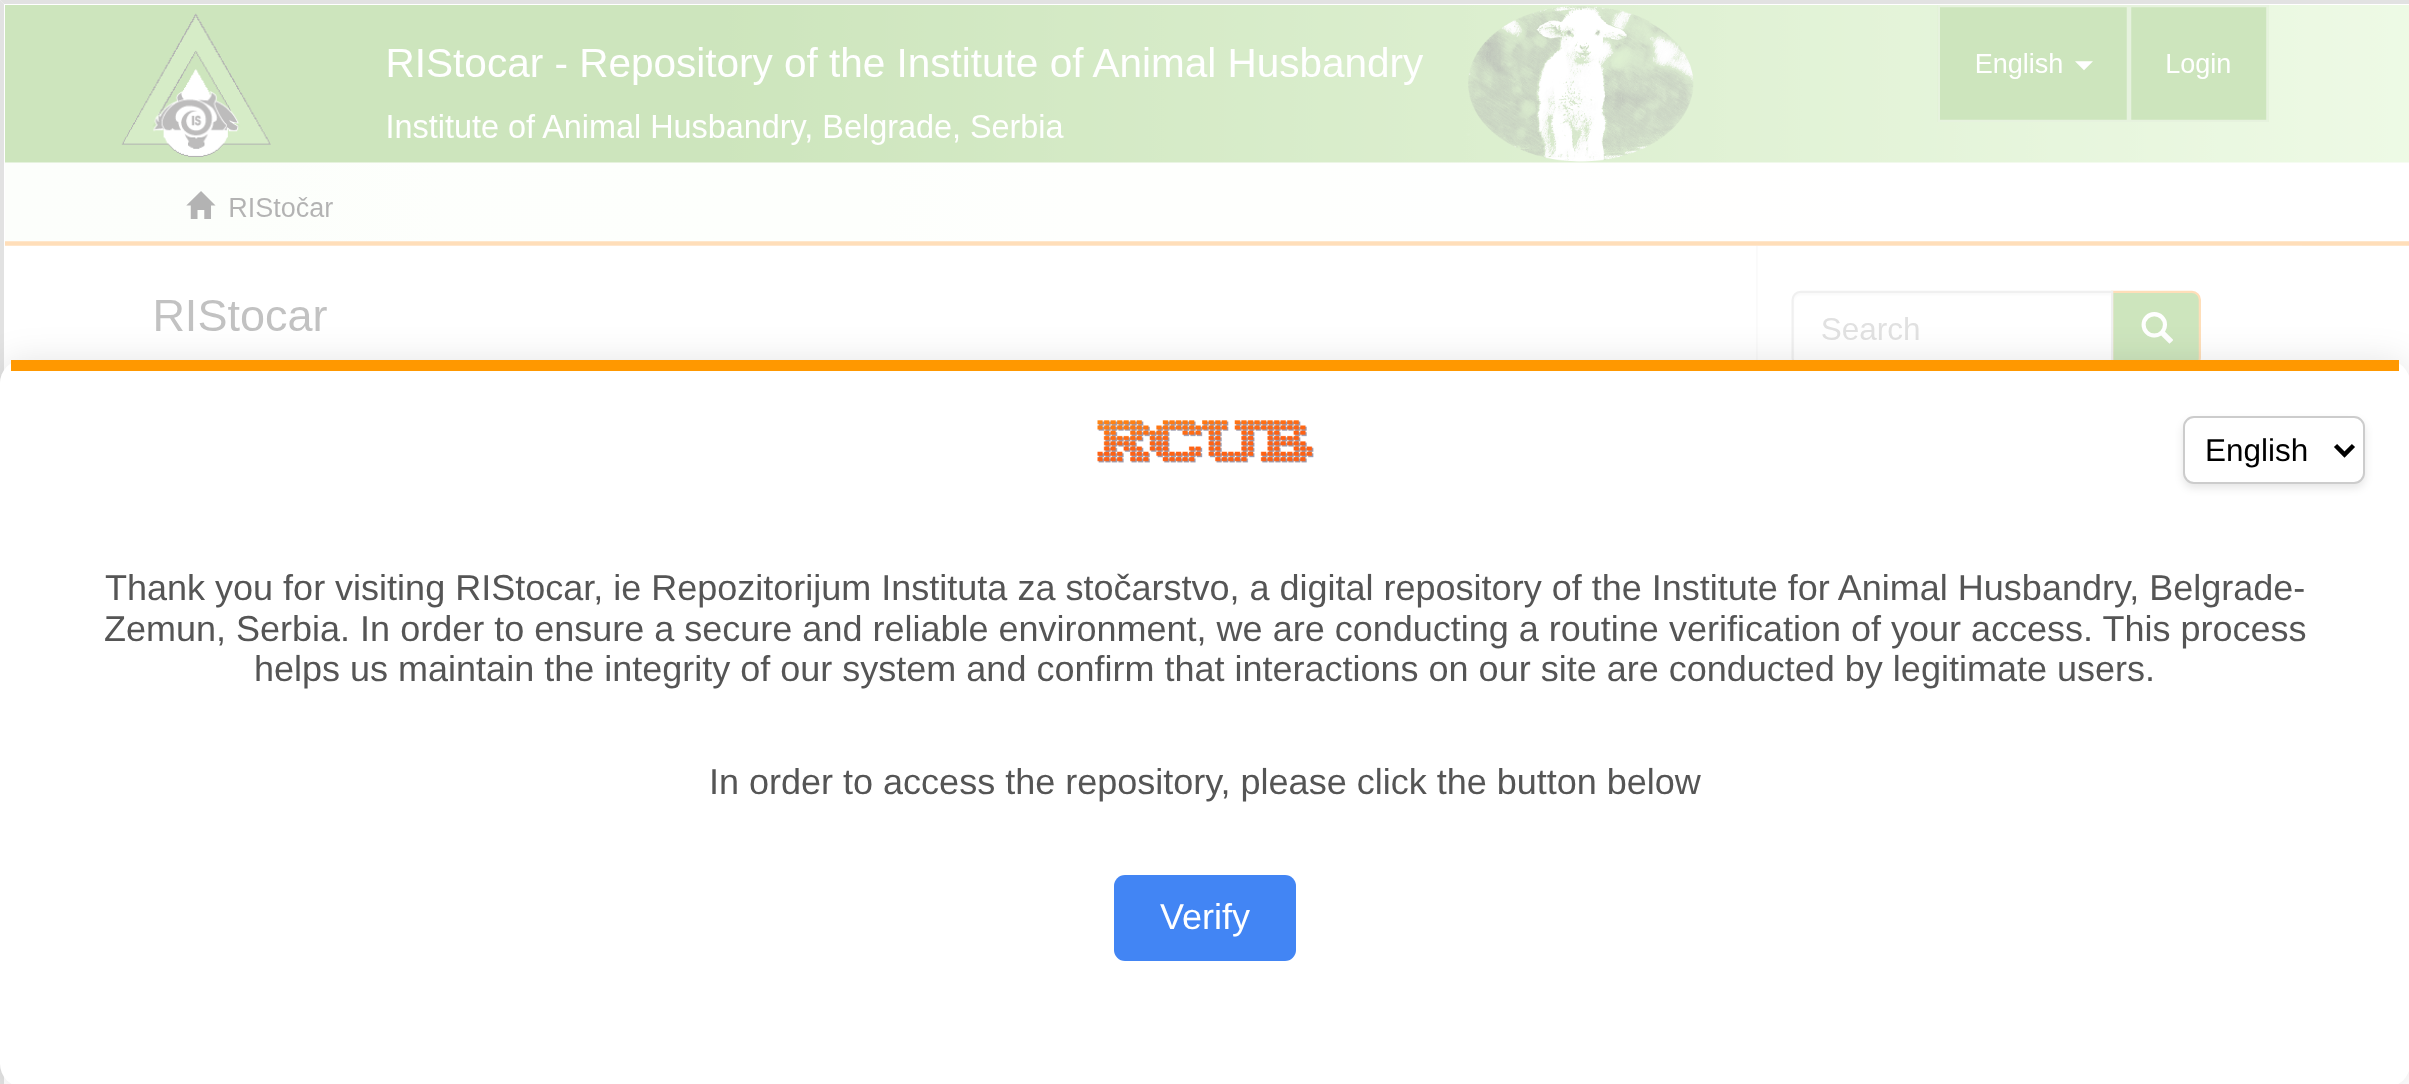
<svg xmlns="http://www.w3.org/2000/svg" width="2409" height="1084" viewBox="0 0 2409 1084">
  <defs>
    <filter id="blur1" x="-50%" y="-200%" width="200%" height="500%"><feGaussianBlur stdDeviation="17"/></filter>
    <filter id="blur2" x="-50%" y="-200%" width="200%" height="500%"><feGaussianBlur stdDeviation="4.5"/></filter>
  </defs>
  <rect width="100%" height="100%" fill="#ffffff"/>
  <path d="M0 0H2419L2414 4H4Z" fill="#e2e2e2"/>
  <path d="M0 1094V0L4 4V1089Z" fill="#e2e2e2"/>
  <image x="5" y="5" width="2404" height="1079" href="img1.png"/>
  <rect x="0" y="360" width="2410" height="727" rx="23" fill="#000000" fill-opacity="0.1" filter="url(#blur1)"/>
  <rect x="0" y="360" width="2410" height="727" rx="23" fill="#ffffff"/>
  <rect x="11" y="360" width="2388" height="11" fill="#ff9800"/>
  <image x="1097" y="420" width="217" height="43" href="img2.png"/>
  <rect x="2183" y="421" width="182" height="67" rx="11" fill="#000000" fill-opacity="0.1" filter="url(#blur2)"/>
  <rect x="2184" y="417" width="180" height="66" rx="10" fill="#ffffff" stroke="#cccccc" stroke-width="2"/>
  <path d="M2335.5 445.5L2344.5 454.5L2353.5 445.5" fill="none" stroke="#000000" stroke-width="4.5"/>
  <text x="2205" y="461" font-family="Liberation Sans" font-size="31.5" fill="#000000">English</text>
  <text x="105" y="600" font-family="Liberation Sans" font-size="36" fill="#555555">Thank you for visiting RIStocar, ie Repozitorijum Instituta za stočarstvo, a digital repository of the Institute for Animal Husbandry, Belgrade-</text>
  <text x="104" y="641" font-family="Liberation Sans" font-size="36" fill="#555555">Zemun, Serbia. In order to ensure a secure and reliable environment, we are conducting a routine verification of your access. This process</text>
  <text x="254" y="681" font-family="Liberation Sans" font-size="36" fill="#555555">helps us maintain the integrity of our system and confirm that interactions on our site are conducted by legitimate users.</text>
  <text x="709" y="794" font-family="Liberation Sans" font-size="36" fill="#555555">In order to access the repository, please click the button below</text>
  <rect x="1114" y="875" width="182" height="86" rx="11" fill="#4285f4"/>
  <text x="1160" y="929" font-family="Liberation Sans" font-size="36" fill="#ffffff">Verify</text>
</svg>
